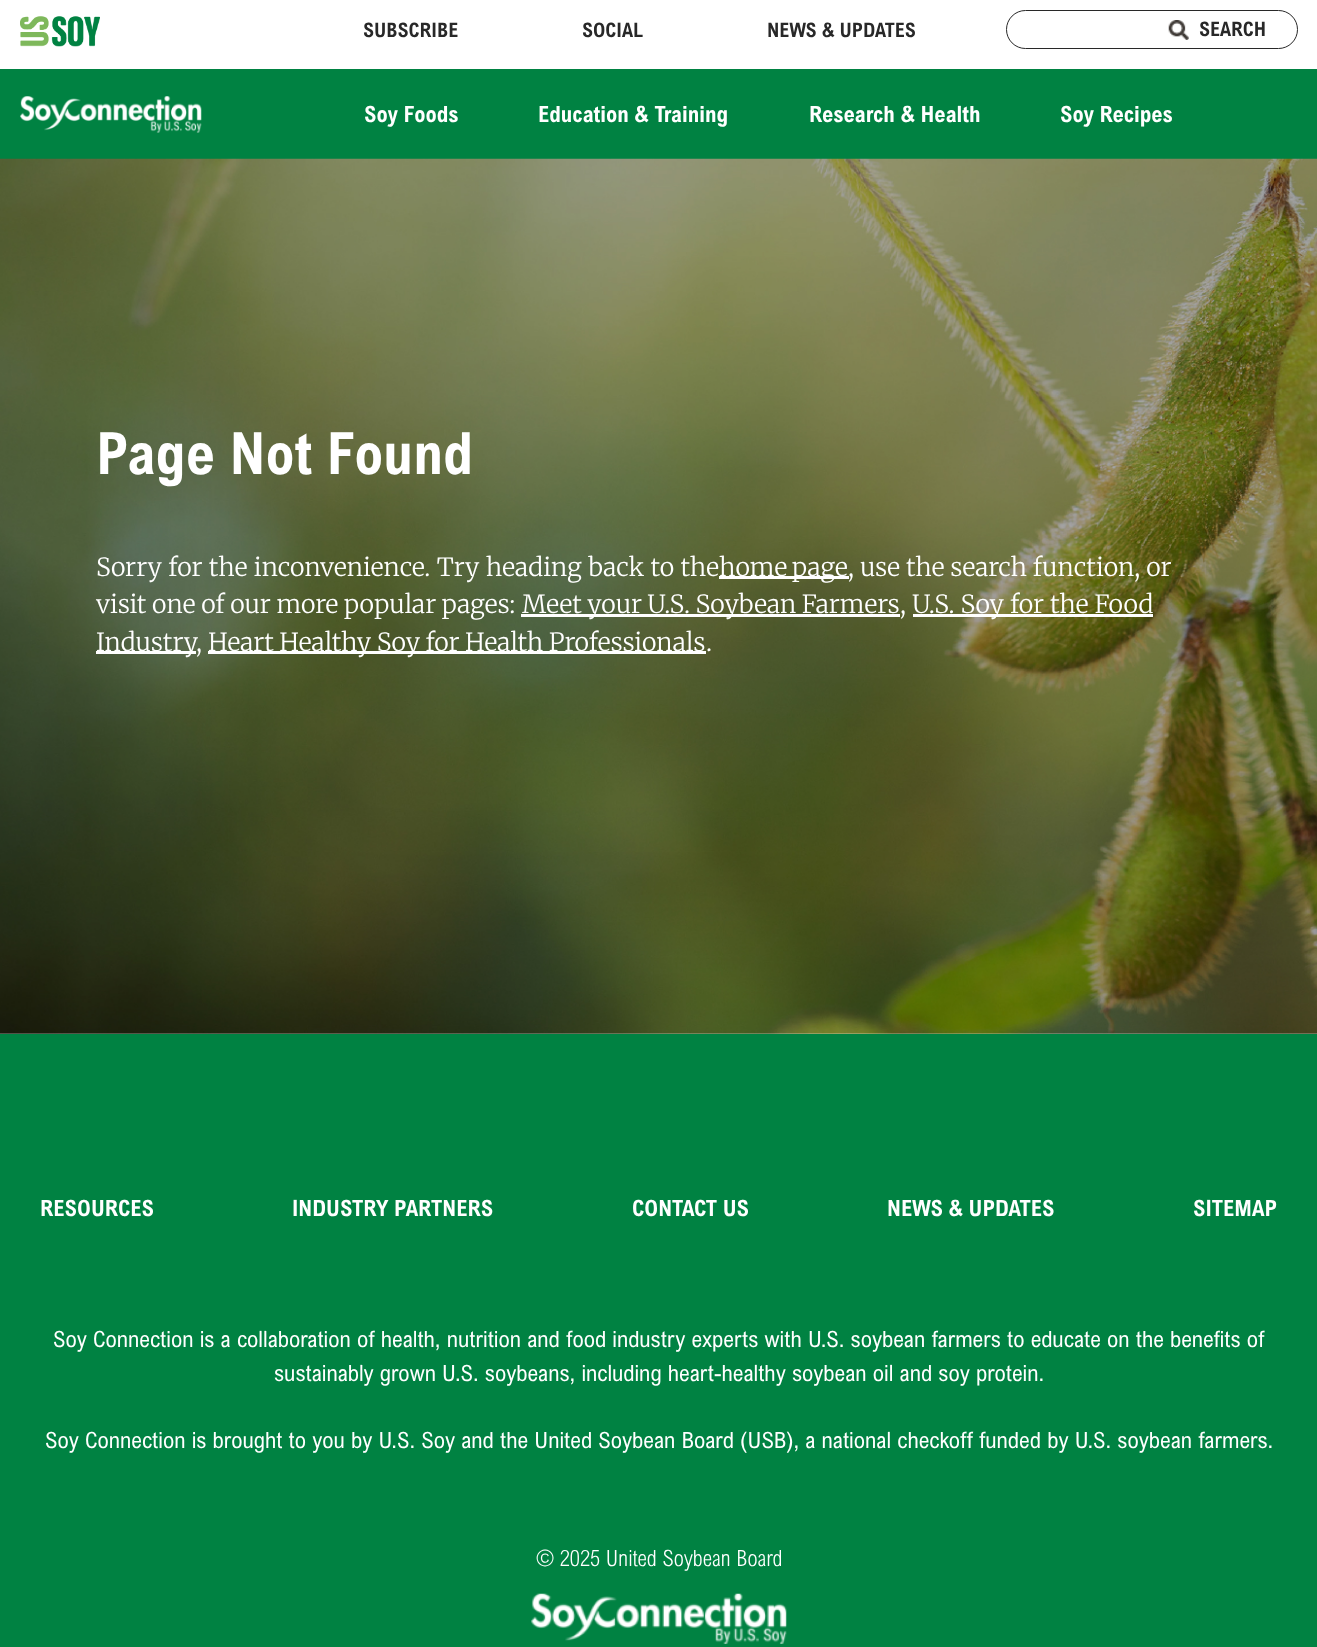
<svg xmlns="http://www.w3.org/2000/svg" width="1317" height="1647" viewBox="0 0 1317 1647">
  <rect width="100%" height="100%" fill="#ffffff"/>
  <image x="20" y="16" width="80" height="31" href="img1.png"/>
  <text x="363" y="37" font-family="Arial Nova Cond" font-size="20" font-weight="bold" fill="#282828">SUBSCRIBE</text>
  <text x="582" y="37" font-family="Arial Nova Cond" font-size="20" font-weight="bold" fill="#282828">SOCIAL</text>
  <text x="767" y="37" font-family="Arial Nova Cond" font-size="20" font-weight="bold" fill="#282828">NEWS &amp; UPDATES</text>
  <rect x="1006.5" y="10.5" width="291" height="38" rx="19" fill="none" stroke="#282828"/>
  <image x="1168" y="20" width="21" height="20" href="img2.png"/>
  <text x="1199" y="36" font-family="Arial Nova Cond" font-size="20" font-weight="bold" fill="#282828">SEARCH</text>
  <rect x="0" y="69" width="1317" height="90" fill="#008242"/>
  <image x="20" y="96" width="182" height="37" href="img3.png"/>
  <text x="364" y="122" font-family="Arial Nova Cond" font-size="22.5" font-weight="bold" fill="#ffffff">Soy Foods</text>
  <text x="538" y="122" font-family="Arial Nova Cond" font-size="22.5" font-weight="bold" fill="#ffffff">Education &amp; Training</text>
  <text x="809" y="122" font-family="Arial Nova Cond" font-size="22.5" font-weight="bold" fill="#ffffff">Research &amp; Health</text>
  <text x="1060" y="122" font-family="Arial Nova Cond" font-size="22.5" font-weight="bold" fill="#ffffff">Soy Recipes</text>
  <image x="0" y="158" width="1317" height="876" href="img4.png"/>
  <text x="96" y="474" font-family="Arial Nova Cond" font-size="58.25" font-weight="bold" fill="#ffffff">Page Not Found</text>
  <text x="96" y="576" word-spacing="0.5" font-family="Merriweather" font-size="25" font-weight="300" fill="#ffffff">Sorry for the inconvenience. Try heading back to the</text>
  <rect x="719" y="576" width="130" height="3" fill="#ffffff"/>
  <text x="719" y="576" word-spacing="-1" font-family="Merriweather" font-size="25" font-weight="300" fill="#ffffff">home page</text>
  <text x="848" y="576" font-family="Merriweather" font-size="25" font-weight="300" fill="#ffffff">, use the search function, or</text>
  <text x="96" y="613" word-spacing="-0.25" font-family="Merriweather" font-size="25" font-weight="300" fill="#ffffff">visit one of our more popular pages:</text>
  <rect x="521" y="614" width="379" height="3" fill="#ffffff"/>
  <text x="522" y="613" word-spacing="-0.5" font-family="Merriweather" font-size="25" font-weight="300" fill="#ffffff">Meet your U.S. Soybean Farmers</text>
  <text x="900" y="613" font-family="Merriweather" font-size="25" font-weight="300" fill="#ffffff">,</text>
  <rect x="913" y="614" width="240" height="3" fill="#ffffff"/>
  <text x="912" y="613" font-family="Merriweather" font-size="25" font-weight="300" fill="#ffffff">U.S. Soy for the Food</text>
  <rect x="96" y="651" width="100" height="3" fill="#ffffff"/>
  <text x="96" y="651" font-family="Merriweather" font-size="25" font-weight="300" fill="#ffffff">Industry</text>
  <rect x="208" y="651" width="498" height="3" fill="#ffffff"/>
  <text x="208" y="651" word-spacing="-0.5" font-family="Merriweather" font-size="25" font-weight="300" fill="#ffffff">Heart Healthy Soy for Health Professionals</text>
  <text x="196" y="651" font-family="Merriweather" font-size="25" font-weight="300" fill="#ffffff">,</text>
  <text x="706" y="651" font-family="Merriweather" font-size="25" font-weight="300" fill="#ffffff">.</text>
  <rect x="0" y="1034" width="1317" height="613" fill="#008242"/>
  <text x="40" y="1216" font-family="Arial Nova Cond" font-size="22.5" font-weight="bold" fill="#ffffff">RESOURCES</text>
  <text x="292" y="1216" font-family="Arial Nova Cond" font-size="22.5" font-weight="bold" fill="#ffffff">INDUSTRY PARTNERS</text>
  <text x="632" y="1216" font-family="Arial Nova Cond" font-size="22.5" font-weight="bold" fill="#ffffff">CONTACT US</text>
  <text x="887" y="1216" font-family="Arial Nova Cond" font-size="22.5" font-weight="bold" fill="#ffffff">NEWS &amp; UPDATES</text>
  <text x="1193" y="1216" font-family="Arial Nova Cond" font-size="22.5" font-weight="bold" fill="#ffffff">SITEMAP</text>
  <text x="53" y="1347" font-family="Arial Nova Cond" font-size="22.5" fill="#ffffff">Soy Connection is a collaboration of health, nutrition and food industry experts with U.S. soybean farmers to educate on the benefits of</text>
  <text x="274" y="1381" font-family="Arial Nova Cond" font-size="22.5" fill="#ffffff">sustainably grown U.S. soybeans, including heart-healthy soybean oil and soy protein.</text>
  <text x="45" y="1448" font-family="Arial Nova Cond" font-size="22.5" fill="#ffffff">Soy Connection is brought to you by U.S. Soy and the United Soybean Board (USB), a national checkoff funded by U.S. soybean farmers.</text>
  <text x="536" y="1566" font-family="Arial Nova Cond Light" font-size="22.5" font-weight="300" fill="#ffffff">© 2025 United Soybean Board</text>
  <image x="531" y="1593" width="256" height="51" href="img5.png"/>
</svg>
